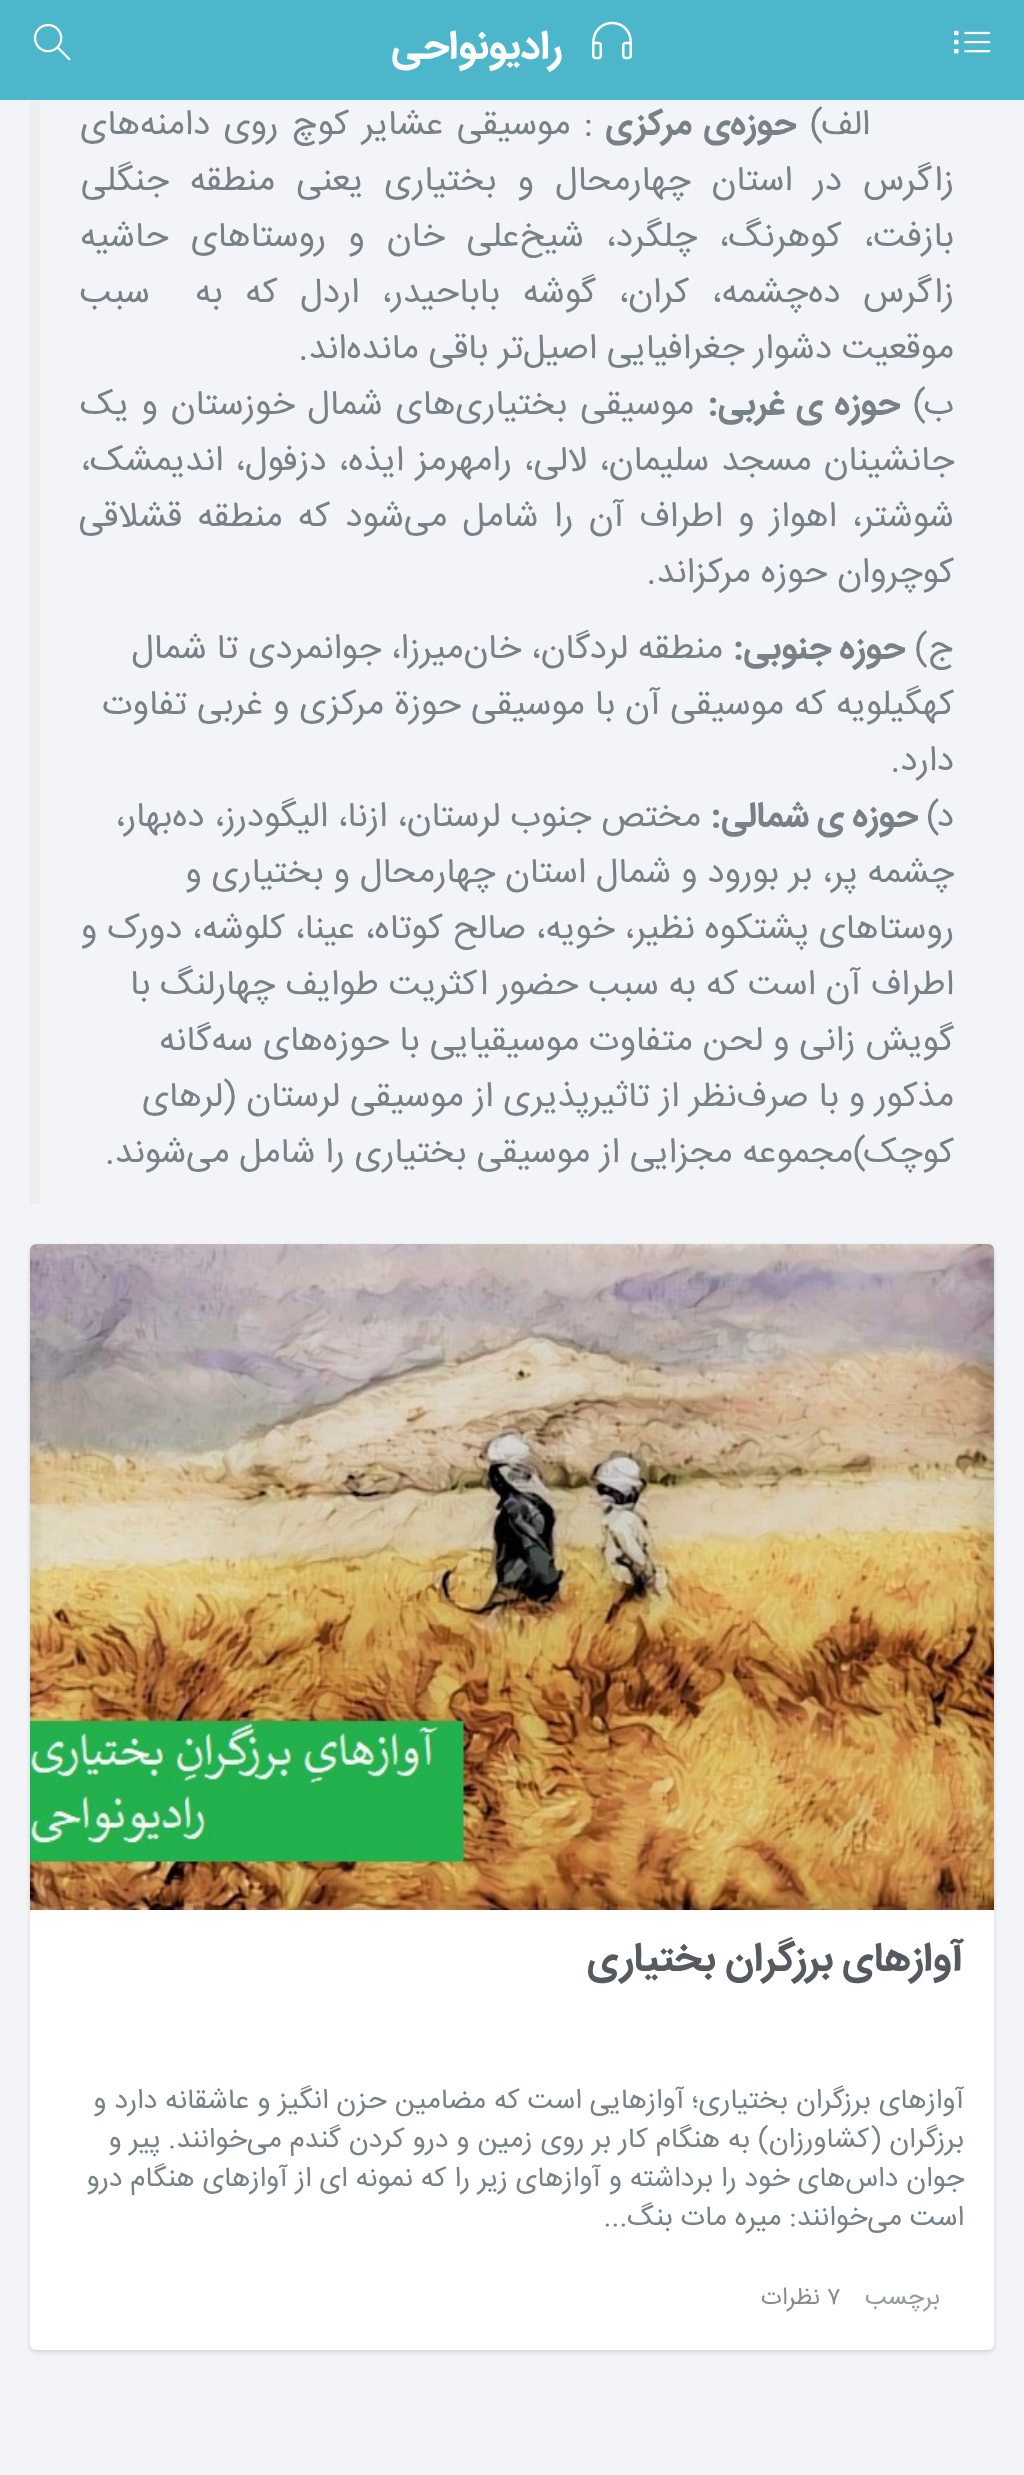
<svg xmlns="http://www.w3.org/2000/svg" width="1024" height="2475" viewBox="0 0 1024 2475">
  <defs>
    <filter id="blur1" x="-50%" y="-200%" width="200%" height="500%"><feGaussianBlur stdDeviation="2"/></filter>
  </defs>
  <rect width="100%" height="100%" fill="#f2f4f8"/>
  <rect x="0" y="0" width="1024" height="100" fill="#4cb6cb"/>
  <image x="954" y="30" width="37" height="24" href="img1.png"/>
  <image x="592" y="21" width="40" height="39" href="img2.png"/>
  <text x="562" y="58" font-family="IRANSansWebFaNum" font-size="40" font-weight="bold" direction="rtl" fill="#ffffff">رادیونواحی</text>
  <image x="33" y="23" width="38" height="38" href="img3.png"/>
  <rect x="30" y="100" width="10" height="1104" fill="#eeeeee"/>
  <text x="870" y="134" font-family="IRANSansWebFaNum" font-size="35" direction="rtl" fill="#788188">الف)</text>
  <text x="796" y="134" word-spacing="4" font-family="IRANSansWebFaNum" font-size="35" font-weight="bold" direction="rtl" fill="#788188">حوزه‌ی مرکزی</text>
  <text x="593" y="134" word-spacing="3.5" font-family="IRANSansWebFaNum" font-size="35" direction="rtl" fill="#788188">: موسیقی عشایر کوچ روی دامنه‌های</text>
  <text x="954" y="190" word-spacing="11.25" font-family="IRANSansWebFaNum" font-size="35" direction="rtl" fill="#788188">زاگرس در استان چهارمحال و بختیاری یعنی منطقه جنگلی</text>
  <text x="954" y="246" word-spacing="12.25" font-family="IRANSansWebFaNum" font-size="35" direction="rtl" fill="#788188">بازفت، کوهرنگ، چلگرد، شیخ‌علی خان و روستاهای حاشیه</text>
  <text x="954" y="302" word-spacing="12.75" font-family="IRANSansWebFaNum" font-size="35" direction="rtl" fill="#788188" xml:space="preserve">زاگرس ده‌چشمه، کران، گوشه باباحیدر، اردل که به  سبب</text>
  <text x="954" y="358" font-family="IRANSansWebFaNum" font-size="35" direction="rtl" fill="#788188">موقعیت دشوار جغرافیایی اصیل‌تر باقی مانده‌اند.</text>
  <text x="954" y="414" font-family="IRANSansWebFaNum" font-size="35" direction="rtl" fill="#788188">ب)</text>
  <text x="900" y="414" word-spacing="3" font-family="IRANSansWebFaNum" font-size="35" font-weight="bold" direction="rtl" fill="#788188">حوزه ی غربی:</text>
  <text x="694" y="414" word-spacing="3" font-family="IRANSansWebFaNum" font-size="35" direction="rtl" fill="#788188">موسیقی بختیاری‌های شمال خوزستان و یک</text>
  <text x="954" y="470" word-spacing="2.25" font-family="IRANSansWebFaNum" font-size="35" direction="rtl" fill="#788188">جانشینان مسجد سلیمان، لالی، رامهرمز ایذه، دزفول، اندیمشک،</text>
  <text x="954" y="526" word-spacing="5.5" font-family="IRANSansWebFaNum" font-size="35" direction="rtl" fill="#788188">شوشتر، اهواز و اطراف آن را شامل می‌شود که منطقه قشلاقی</text>
  <text x="954" y="582" font-family="IRANSansWebFaNum" font-size="35" direction="rtl" fill="#788188">کوچروان حوزه مرکز‌اند.</text>
  <text x="954" y="658" font-family="IRANSansWebFaNum" font-size="35" direction="rtl" fill="#788188">ج)</text>
  <text x="905" y="658" font-family="IRANSansWebFaNum" font-size="35" font-weight="bold" direction="rtl" fill="#788188">حوزه جنوبی:</text>
  <text x="723" y="658" font-family="IRANSansWebFaNum" font-size="35" direction="rtl" fill="#788188">منطقه لردگان، خان‌میرزا، جوانمردی تا شمال</text>
  <text x="954" y="714" font-family="IRANSansWebFaNum" font-size="35" direction="rtl" fill="#788188">کهگیلویه که موسیقی آن با موسیقی حوزة مرکزی و غربی تفاوت</text>
  <text x="954" y="770" font-family="IRANSansWebFaNum" font-size="35" direction="rtl" fill="#788188">دارد.</text>
  <text x="954" y="826" font-family="IRANSansWebFaNum" font-size="35" direction="rtl" fill="#788188">د)</text>
  <text x="918" y="826" font-family="IRANSansWebFaNum" font-size="35" font-weight="bold" direction="rtl" fill="#788188">حوزه ی شمالی:</text>
  <text x="701" y="826" font-family="IRANSansWebFaNum" font-size="35" direction="rtl" fill="#788188">مختص جنوب لرستان، ازنا، الیگودرز، ده‌بهار،</text>
  <text x="954" y="882" font-family="IRANSansWebFaNum" font-size="35" direction="rtl" fill="#788188">چشمه پر، بر بورود و شمال استان چهارمحال و بختیاری و</text>
  <text x="954" y="938" font-family="IRANSansWebFaNum" font-size="35" direction="rtl" fill="#788188">روستاهای پشتکوه نظیر، خویه، صالح کوتاه، عینا، کلوشه، دورک و</text>
  <text x="954" y="994" font-family="IRANSansWebFaNum" font-size="35" direction="rtl" fill="#788188">اطراف آن است که به سبب حضور اکثریت طوایف چهارلنگ با</text>
  <text x="954" y="1050" font-family="IRANSansWebFaNum" font-size="35" direction="rtl" fill="#788188">گویش زانی و لحن متفاوت موسیقیایی با حوزه‌های سه‌گانه</text>
  <text x="954" y="1106" font-family="IRANSansWebFaNum" font-size="35" direction="rtl" fill="#788188">مذکور و با صرف‌نظر از تاثیر‌پذیری از موسیقی لرستان (لرهای</text>
  <text x="954" y="1162" font-family="IRANSansWebFaNum" font-size="35" direction="rtl" fill="#788188">کوچک)مجموعه مجزایی از موسیقی بختیاری را شامل می‌شوند.</text>
  <rect x="30" y="1246" width="964" height="1106" rx="6" fill="#000000" fill-opacity="0.15" filter="url(#blur1)"/>
  <rect x="30" y="1244" width="964" height="1106" rx="6" fill="#ffffff"/>
  <image x="30" y="1244" width="964" height="666" href="img4.png"/>
  <text x="964" y="1970" font-family="IRANSansWebFaNum" font-size="40" font-weight="bold" direction="rtl" fill="#545a5f">آوازهای برزگران بختیاری</text>
  <text x="964" y="2108" font-family="IRANSansWebFaNum" font-size="28" direction="rtl" fill="#788188">آوازهای برزگران بختیاری؛ آوازهایی است که مضامین حزن انگیز و عاشقانه دارد و</text>
  <text x="964" y="2147" font-family="IRANSansWebFaNum" font-size="28" direction="rtl" fill="#788188">برزگران (کشاورزان) به هنگام کار بر روی زمین و درو کردن گندم می‌خوانند. پیر و</text>
  <text x="964" y="2186" font-family="IRANSansWebFaNum" font-size="28" direction="rtl" fill="#788188">جوان داس‌های خود را برداشته و آوازهای زیر را که نمونه ای از آوازهای هنگام درو</text>
  <text x="964" y="2225" font-family="IRANSansWebFaNum" font-size="28" direction="rtl" fill="#788188">است می‌خوانند: میره مات بنگ...</text>
  <text x="940" y="2304" font-family="IRANSansWebFaNum" font-size="24" direction="rtl" fill="#939aa0">برچسب</text>
  <text x="827" y="2304" font-family="IRANSansWebFaNum" font-size="24" fill="#878c8f">۷</text>
  <text x="820" y="2304" font-family="IRANSansWebFaNum" font-size="24" direction="rtl" fill="#878c8f">نظرات</text>
</svg>
